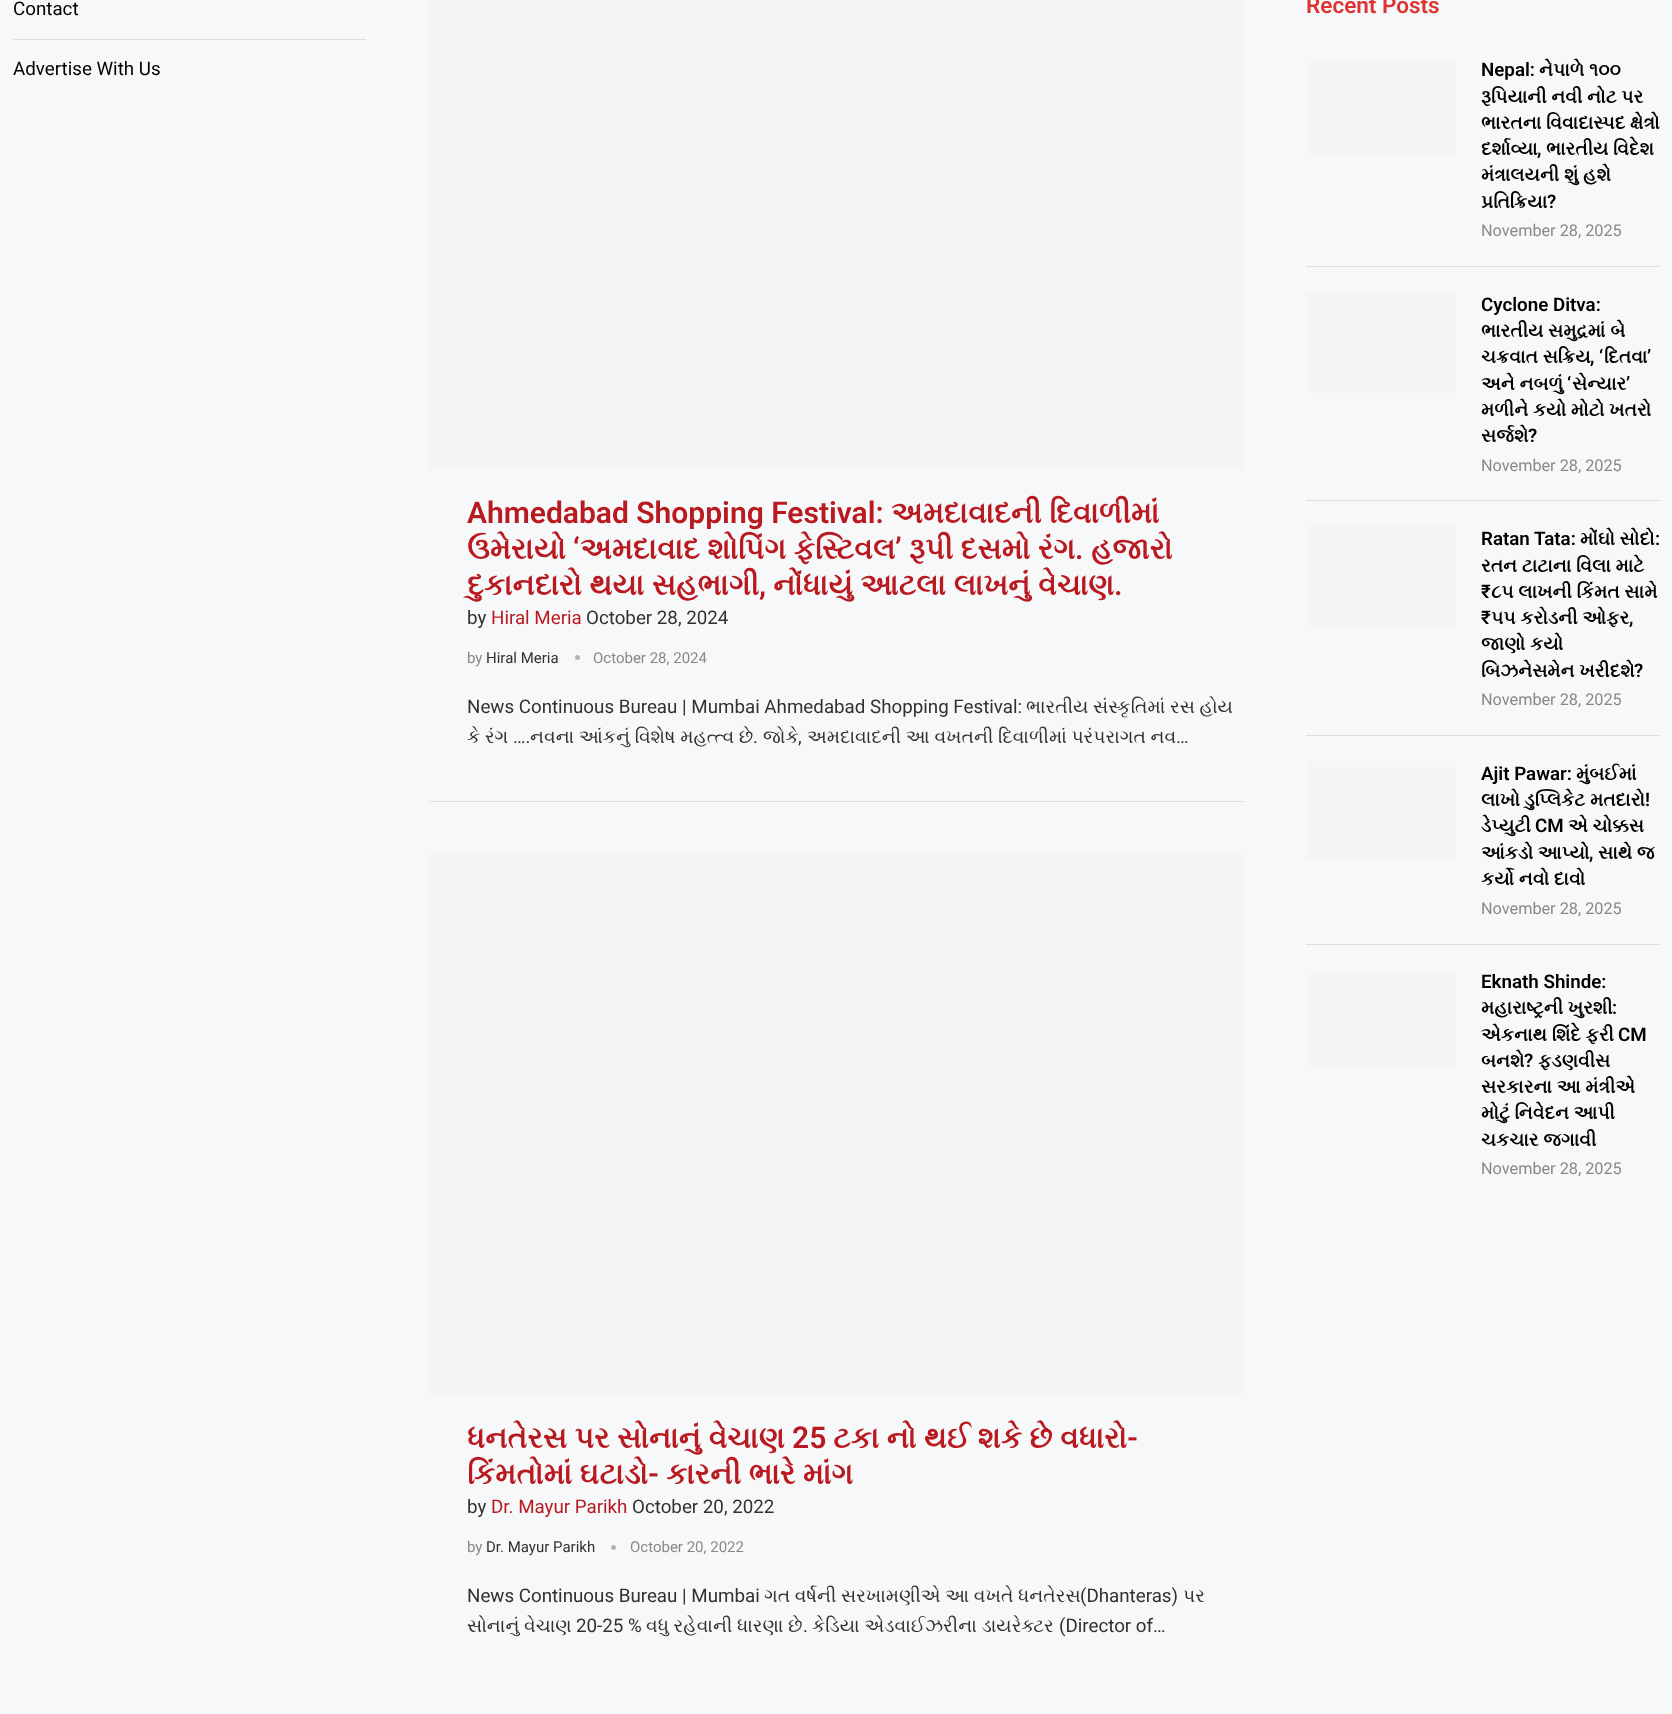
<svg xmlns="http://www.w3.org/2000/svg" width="1672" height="1714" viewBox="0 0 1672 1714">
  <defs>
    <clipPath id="clip1"><rect x="1481" y="58" width="179" height="183"/></clipPath>
    <clipPath id="clip2"><rect x="1481" y="761" width="179" height="158"/></clipPath>
    <clipPath id="clip3"><rect x="1481" y="970" width="179" height="209"/></clipPath>
  </defs>
  <rect width="100%" height="100%" fill="#f6f8fa"/>
  <rect x="13" y="39" width="353" height="1" fill="#dedede"/>
  <text x="13" y="15" font-family="Roboto" font-size="18.75" fill="#000000">Contact</text>
  <text x="13" y="75" font-family="Roboto" font-size="18.75" fill="#000000">Advertise With Us</text>
  <text x="1306" y="13" font-family="Roboto" font-size="22.5" font-weight="600" fill="#dd3333">Recent Posts</text>
  <rect x="1306" y="266" width="354" height="1" fill="#dedede"/>
  <rect x="1306" y="58" width="150" height="100" fill="#f5f5f5"/>
  <text x="1481" y="76" font-family="Roboto" font-size="18.75" font-weight="600" fill="#000000">Nepal:</text>
  <text x="1539" y="76" font-family="FreeSerif" font-size="18.75" font-weight="bold" fill="#000000">નેપાળે ૧૦૦</text>
  <text x="1481" y="103" font-family="FreeSerif" font-size="18.75" font-weight="bold" fill="#000000">રૂપિયાની નવી નોટ પર</text>
  <text x="1481" y="129" font-family="FreeSerif" font-size="18.75" font-weight="bold" fill="#000000">ભારતના વિવાદાસ્પદ ક્ષેત્રો</text>
  <text x="1481" y="155" font-family="FreeSerif" font-size="18.75" font-weight="bold" fill="#000000">દર્શાવ્યા</text>
  <text x="1537" y="155" font-family="Roboto" font-size="18.75" font-weight="600" fill="#000000">,</text>
  <text x="1546" y="155" font-family="FreeSerif" font-size="18.75" font-weight="bold" fill="#000000">ભારતીય વિદેશ</text>
  <g clip-path="url(#clip1)">
    <text x="1481" y="181" font-family="FreeSerif" font-size="18.75" font-weight="bold" fill="#000000">મંત્રાલયની શું હશે</text>
    <text x="1481" y="208" font-family="FreeSerif" font-size="18.75" font-weight="bold" fill="#000000">પ્રતિક્રિયા</text>
  </g>
  <text x="1547" y="208" font-family="Roboto" font-size="18.75" font-weight="600" fill="#000000">?</text>
  <text x="1481" y="236" font-family="Roboto" font-size="16.25" fill="#888888">November 28, 2025</text>
  <rect x="1306" y="500" width="354" height="1" fill="#dedede"/>
  <rect x="1306" y="293" width="150" height="100" fill="#f5f5f5"/>
  <text x="1481" y="311" font-family="Roboto" font-size="18.75" font-weight="600" fill="#000000">Cyclone Ditva:</text>
  <text x="1481" y="337" font-family="FreeSerif" font-size="18.75" font-weight="bold" fill="#000000">ભારતીય સમુદ્રમાં બે</text>
  <text x="1481" y="363" font-family="FreeSerif" font-size="18.75" font-weight="bold" fill="#000000">ચક્રવાત સક્રિય</text>
  <text x="1590" y="363" font-family="Roboto" font-size="18.75" font-weight="600" fill="#000000">, ‘</text>
  <text x="1604" y="363" font-family="FreeSerif" font-size="18.75" font-weight="bold" fill="#000000">દિતવા</text>
  <text x="1647" y="363" font-family="Roboto" font-size="18.75" font-weight="600" fill="#000000">’</text>
  <text x="1481" y="390" font-family="FreeSerif" font-size="18.75" font-weight="bold" fill="#000000">અને નબળું</text>
  <text x="1567" y="390" font-family="Roboto" font-size="18.75" font-weight="600" fill="#000000">‘</text>
  <text x="1572" y="390" font-family="FreeSerif" font-size="18.75" font-weight="bold" fill="#000000">સેન્યાર</text>
  <text x="1626" y="390" font-family="Roboto" font-size="18.75" font-weight="600" fill="#000000">’</text>
  <text x="1481" y="416" font-family="FreeSerif" font-size="18.75" font-weight="bold" fill="#000000">મળીને કયો મોટો ખતરો</text>
  <text x="1481" y="442" font-family="FreeSerif" font-size="18.75" font-weight="bold" fill="#000000">સર્જશે</text>
  <text x="1528" y="442" font-family="Roboto" font-size="18.75" font-weight="600" fill="#000000">?</text>
  <text x="1481" y="471" font-family="Roboto" font-size="16.25" fill="#888888">November 28, 2025</text>
  <rect x="1306" y="735" width="354" height="1" fill="#dedede"/>
  <rect x="1306" y="526" width="150" height="100" fill="#f5f5f5"/>
  <text x="1481" y="545" font-family="Roboto" font-size="18.75" font-weight="600" fill="#000000">Ratan Tata:</text>
  <text x="1580" y="545" font-family="FreeSerif" font-size="18.75" font-weight="bold" fill="#000000">મોંઘો સોદો</text>
  <text x="1655" y="545" font-family="Roboto" font-size="18.75" font-weight="600" fill="#000000">:</text>
  <text x="1481" y="572" font-family="FreeSerif" font-size="18.75" font-weight="bold" fill="#000000">રતન ટાટાના વિલા માટે</text>
  <text x="1481" y="598" font-family="Roboto" font-size="18.75" font-weight="600" fill="#000000">₹</text>
  <text x="1491" y="598" font-family="FreeSerif" font-size="18.75" font-weight="bold" fill="#000000">૮૫ લાખની કિંમત સામે</text>
  <text x="1481" y="624" font-family="Roboto" font-size="18.75" font-weight="600" fill="#000000">₹</text>
  <text x="1491" y="624" font-family="FreeSerif" font-size="18.75" font-weight="bold" fill="#000000">૫૫ કરોડની ઓફર</text>
  <text x="1629" y="624" font-family="Roboto" font-size="18.75" font-weight="600" fill="#000000">,</text>
  <text x="1481" y="650" font-family="FreeSerif" font-size="18.75" font-weight="bold" fill="#000000">જાણો કયો</text>
  <text x="1481" y="677" font-family="FreeSerif" font-size="18.75" font-weight="bold" fill="#000000">બિઝનેસમેન ખરીદશે</text>
  <text x="1634" y="677" font-family="Roboto" font-size="18.75" font-weight="600" fill="#000000">?</text>
  <text x="1481" y="705" font-family="Roboto" font-size="16.25" fill="#888888">November 28, 2025</text>
  <rect x="1306" y="944" width="354" height="1" fill="#dedede"/>
  <rect x="1306" y="761" width="150" height="100" fill="#f5f5f5"/>
  <text x="1481" y="780" font-family="Roboto" font-size="18.75" font-weight="600" fill="#000000">Ajit Pawar:</text>
  <text x="1576" y="780" font-family="FreeSerif" font-size="18.75" font-weight="bold" fill="#000000">મુંબઈમાં</text>
  <text x="1481" y="806" font-family="FreeSerif" font-size="18.75" font-weight="bold" fill="#000000">લાખો ડુપ્લિકેટ મતદારો</text>
  <text x="1645" y="806" font-family="Roboto" font-size="18.75" font-weight="600" fill="#000000">!</text>
  <g clip-path="url(#clip2)">
    <text x="1481" y="832" font-family="FreeSerif" font-size="18.75" font-weight="bold" fill="#000000">ડેપ્યુટી</text>
  </g>
  <text x="1535" y="832" font-family="Roboto" font-size="18.75" font-weight="600" fill="#000000">CM</text>
  <text x="1568" y="832" font-family="FreeSerif" font-size="18.75" font-weight="bold" fill="#000000">એ ચોક્કસ</text>
  <g clip-path="url(#clip2)">
    <text x="1481" y="859" font-family="FreeSerif" font-size="18.75" font-weight="bold" fill="#000000">આંકડો આપ્યો</text>
  </g>
  <text x="1589" y="859" font-family="Roboto" font-size="18.75" font-weight="600" fill="#000000">,</text>
  <text x="1598" y="859" font-family="FreeSerif" font-size="18.75" font-weight="bold" fill="#000000">સાથે જ</text>
  <text x="1481" y="885" font-family="FreeSerif" font-size="18.75" font-weight="bold" fill="#000000">કર્યો નવો દાવો</text>
  <text x="1481" y="914" font-family="Roboto" font-size="16.25" fill="#888888">November 28, 2025</text>
  <rect x="1306" y="970" width="150" height="100" fill="#f5f5f5"/>
  <text x="1481" y="988" font-family="Roboto" font-size="18.75" font-weight="600" fill="#000000">Eknath Shinde:</text>
  <text x="1481" y="1014" font-family="FreeSerif" font-size="18.75" font-weight="bold" fill="#000000">મહારાષ્ટ્રની ખુરશી</text>
  <text x="1612" y="1014" font-family="Roboto" font-size="18.75" font-weight="600" fill="#000000">:</text>
  <text x="1481" y="1041" font-family="FreeSerif" font-size="18.75" font-weight="bold" fill="#000000">એકનાથ શિંદે ફરી</text>
  <text x="1618" y="1041" font-family="Roboto" font-size="18.75" font-weight="600" fill="#000000">CM</text>
  <text x="1481" y="1067" font-family="FreeSerif" font-size="18.75" font-weight="bold" fill="#000000">બનશે</text>
  <text x="1524" y="1067" font-family="Roboto" font-size="18.75" font-weight="600" fill="#000000">?</text>
  <text x="1538" y="1067" font-family="FreeSerif" font-size="18.75" font-weight="bold" fill="#000000">ફડણવીસ</text>
  <text x="1481" y="1093" font-family="FreeSerif" font-size="18.75" font-weight="bold" fill="#000000">સરકારના આ મંત્રીએ</text>
  <g clip-path="url(#clip3)">
    <text x="1481" y="1119" font-family="FreeSerif" font-size="18.75" font-weight="bold" fill="#000000">મોટું નિવેદન આપી</text>
  </g>
  <text x="1481" y="1146" font-family="FreeSerif" font-size="18.75" font-weight="bold" fill="#000000">ચકચાર જગાવી</text>
  <text x="1481" y="1174" font-family="Roboto" font-size="16.25" fill="#888888">November 28, 2025</text>
  <rect x="429" y="801" width="815" height="1" fill="#dedede"/>
  <rect x="429" y="0" width="815" height="470" fill="#f5f5f5"/>
  <text x="467" y="523" font-family="Roboto" font-size="30" font-weight="600" fill="#b91a20">Ahmedabad Shopping Festival:</text>
  <text x="891" y="523" font-family="FreeSerif" font-size="30" font-weight="bold" fill="#b91a20">અમદાવાદની દિવાળીમાં</text>
  <text x="467" y="559" font-family="FreeSerif" font-size="30" font-weight="bold" fill="#b91a20">ઉમેરાયો</text>
  <text x="573" y="559" font-family="Roboto" font-size="30" font-weight="600" fill="#b91a20">‘</text>
  <text x="580" y="559" font-family="FreeSerif" font-size="30" font-weight="bold" fill="#b91a20">અમદાવાદ શોપિંગ ફેસ્ટિવલ</text>
  <text x="895" y="559" font-family="Roboto" font-size="30" font-weight="600" fill="#b91a20">’</text>
  <text x="909" y="559" font-family="FreeSerif" font-size="30" font-weight="bold" fill="#b91a20">રૂપી દસમો રંગ</text>
  <text x="1091" y="559" font-family="FreeSerif" font-size="30" font-weight="bold" fill="#b91a20">હજારો</text>
  <text x="1075" y="559" font-family="Roboto" font-size="30" font-weight="600" fill="#b91a20">.</text>
  <text x="467" y="595" font-family="FreeSerif" font-size="30" font-weight="bold" fill="#b91a20">દુકાનદારો થયા સહભાગી</text>
  <text x="759" y="595" font-family="Roboto" font-size="30" font-weight="600" fill="#b91a20">,</text>
  <text x="773" y="595" font-family="FreeSerif" font-size="30" font-weight="bold" fill="#b91a20">નોંધાયું આટલા લાખનું વેચાણ</text>
  <text x="1114" y="595" font-family="Roboto" font-size="30" font-weight="600" fill="#b91a20">.</text>
  <text x="467" y="624" font-family="Roboto" font-size="18.75" fill="#313131">by</text>
  <text x="491" y="624" font-family="Roboto" font-size="18.75" fill="#b91a20">Hiral Meria</text>
  <text x="586" y="624" font-family="Roboto" font-size="18.75" fill="#313131">October 28, 2024</text>
  <text x="467" y="663" font-family="Roboto" font-size="15" fill="#888888">by</text>
  <text x="486" y="663" font-family="Roboto" font-size="15" fill="#313131">Hiral Meria</text>
  <circle cx="577.5" cy="657.5" r="2.5" fill="#b4b5b6"/>
  <text x="593" y="663" font-family="Roboto" font-size="15" fill="#888888">October 28, 2024</text>
  <text x="467" y="713" font-family="Roboto" font-size="18.75" fill="#313131">News Continuous Bureau | Mumbai Ahmedabad Shopping Festival:</text>
  <text x="1026" y="713" font-family="FreeSerif" font-size="18.75" fill="#313131">ભારતીય સંસ્કૃતિમાં રસ હોય</text>
  <text x="467" y="743" font-family="FreeSerif" font-size="18.75" fill="#313131">કે રંગ</text>
  <text x="513" y="743" font-family="Roboto" font-size="18.75" fill="#313131">….</text>
  <text x="530" y="743" font-family="FreeSerif" font-size="18.75" fill="#313131">નવના આંકનું વિશેષ મહત્ત્વ છે</text>
  <text x="753" y="743" font-family="Roboto" font-size="18.75" fill="#313131">.</text>
  <text x="763" y="743" font-family="FreeSerif" font-size="18.75" fill="#313131">જોકે</text>
  <text x="798" y="743" font-family="Roboto" font-size="18.75" fill="#313131">,</text>
  <text x="807" y="743" font-family="FreeSerif" font-size="18.75" fill="#313131">અમદાવાદની આ વખતની દિવાળીમાં પરંપરાગત નવ</text>
  <text x="1176" y="743" font-family="Roboto" font-size="18.75" fill="#313131">…</text>
  <rect x="429" y="853" width="815" height="543" fill="#f5f5f5"/>
  <text x="467" y="1448" font-family="FreeSerif" font-size="30" font-weight="bold" fill="#b91a20">ધનતેરસ પર સોનાનું વેચાણ</text>
  <text x="792" y="1448" font-family="Roboto" font-size="30" font-weight="600" fill="#b91a20">25</text>
  <text x="833" y="1448" font-family="FreeSerif" font-size="30" font-weight="bold" fill="#b91a20">ટકા નો થઈ શકે છે વધારો</text>
  <text x="1127" y="1448" font-family="Roboto" font-size="30" font-weight="600" fill="#b91a20">-</text>
  <text x="467" y="1484" font-family="FreeSerif" font-size="30" font-weight="bold" fill="#b91a20">કિંમતોમાં ઘટાડો</text>
  <text x="648" y="1484" font-family="Roboto" font-size="30" font-weight="600" fill="#b91a20">-</text>
  <text x="666" y="1484" font-family="FreeSerif" font-size="30" font-weight="bold" fill="#b91a20">કારની ભારે માંગ</text>
  <text x="467" y="1513" font-family="Roboto" font-size="18.75" fill="#313131">by</text>
  <text x="491" y="1513" font-family="Roboto" font-size="18.75" fill="#b91a20">Dr. Mayur Parikh</text>
  <text x="632" y="1513" font-family="Roboto" font-size="18.75" fill="#313131">October 20, 2022</text>
  <text x="467" y="1552" font-family="Roboto" font-size="15" fill="#888888">by</text>
  <text x="486" y="1552" font-family="Roboto" font-size="15" fill="#313131">Dr. Mayur Parikh</text>
  <circle cx="613.5" cy="1547.5" r="2.5" fill="#b4b5b6"/>
  <text x="630" y="1552" font-family="Roboto" font-size="15" fill="#888888">October 20, 2022</text>
  <text x="467" y="1602" font-family="Roboto" font-size="18.75" fill="#313131">News Continuous Bureau | Mumbai</text>
  <text x="764" y="1602" font-family="FreeSerif" font-size="18.75" fill="#313131">ગત વર્ષની સરખામણીએ આ વખતે ધનતેરસ</text>
  <text x="1080" y="1602" font-family="Roboto" font-size="18.75" fill="#313131">(Dhanteras)</text>
  <text x="1183" y="1602" font-family="FreeSerif" font-size="18.75" fill="#313131">પર</text>
  <text x="467" y="1632" font-family="FreeSerif" font-size="18.75" fill="#313131">સોનાનું વેચાણ</text>
  <text x="576" y="1632" font-family="Roboto" font-size="18.75" fill="#313131">20-25 %</text>
  <text x="646" y="1632" font-family="FreeSerif" font-size="18.75" fill="#313131">વધુ રહેવાની ધારણા છે</text>
  <text x="803" y="1632" font-family="Roboto" font-size="18.75" fill="#313131">.</text>
  <text x="812" y="1632" font-family="FreeSerif" font-size="18.75" fill="#313131">કેડિયા એડવાઈઝરીના ડાયરેક્ટર</text>
  <text x="1059" y="1632" font-family="Roboto" font-size="18.75" fill="#313131">(Director of…</text>
</svg>
